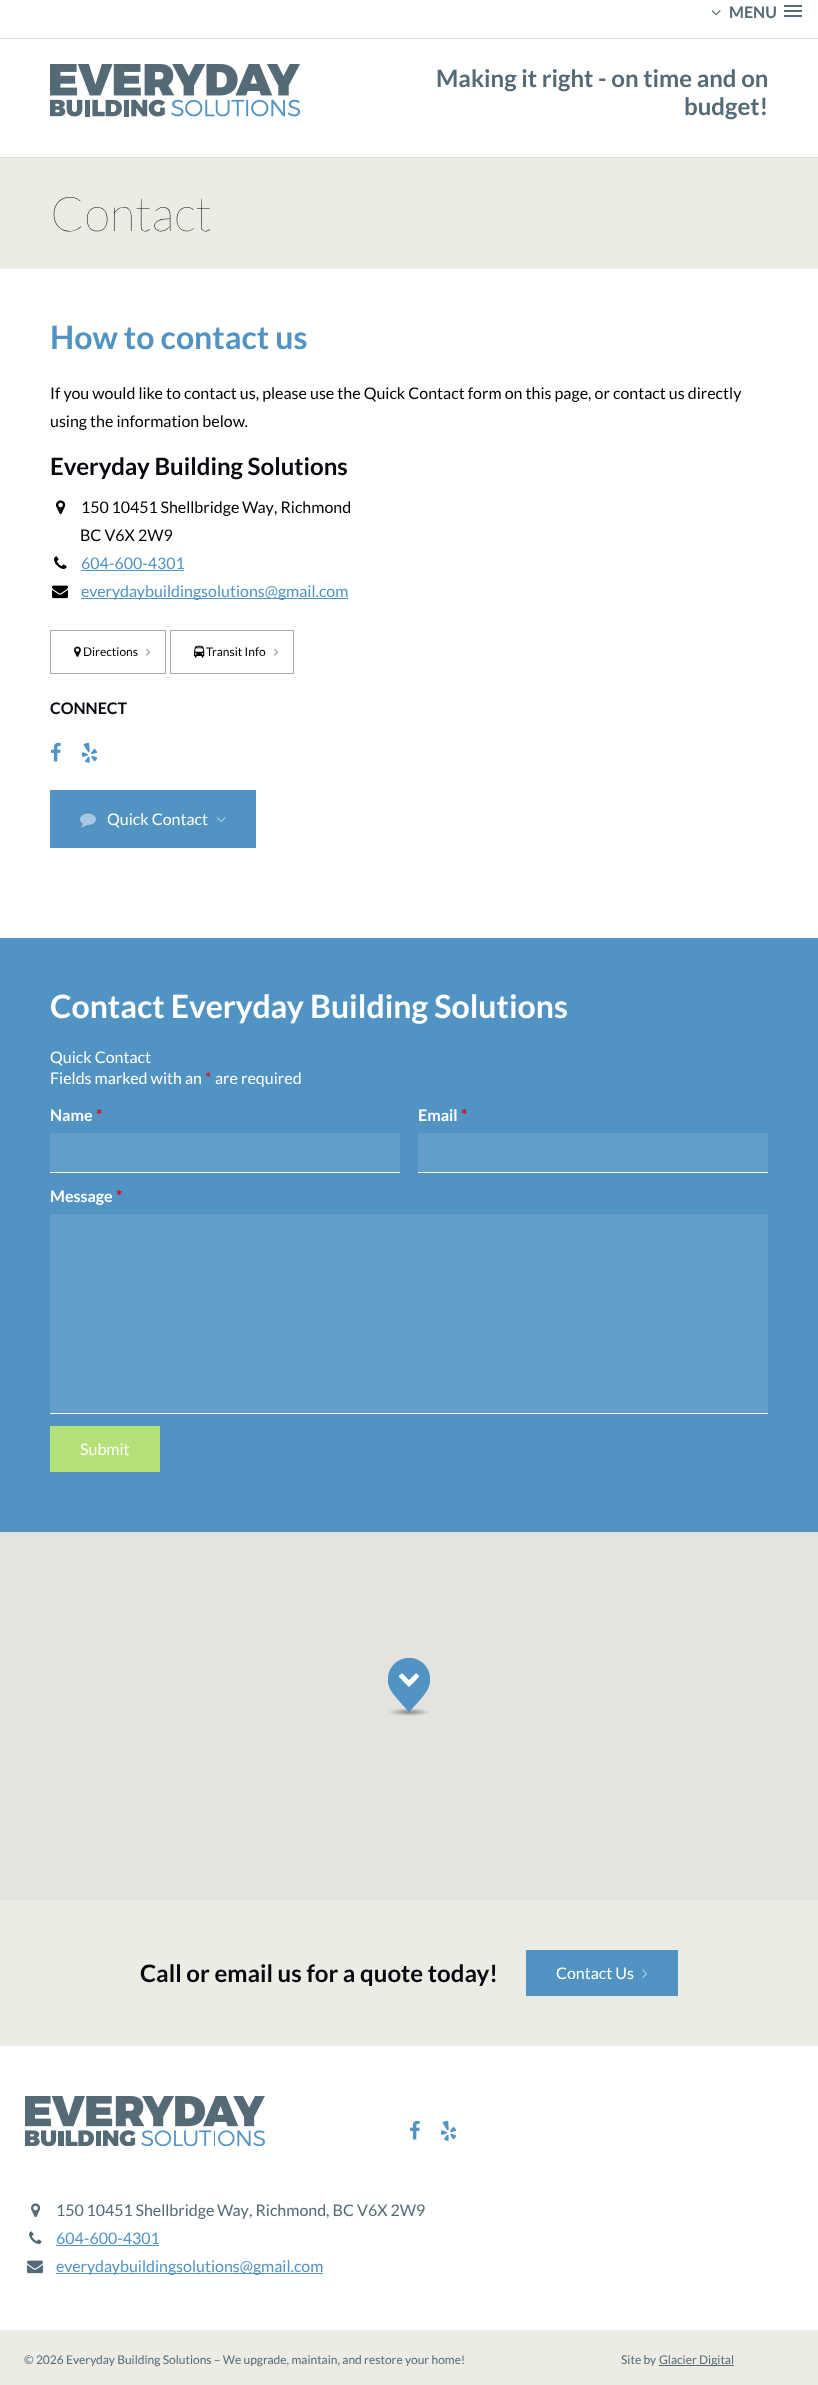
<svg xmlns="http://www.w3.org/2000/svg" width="818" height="2385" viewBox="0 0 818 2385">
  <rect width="100%" height="100%" fill="#ecece4"/>
  <rect x="0" y="0" width="818" height="38" fill="#ffffff"/>
  <rect x="0" y="38" width="818" height="1" fill="#dddddd"/>
  <image x="711" y="10" width="10" height="6" href="img1.png"/>
  <text x="729" y="18" font-family="Lato" font-size="16" font-weight="bold" fill="#546a76">MENU</text>
  <rect x="784" y="5" width="18" height="2" fill="#546a76"/>
  <rect x="784" y="10" width="18" height="2" fill="#546a76"/>
  <rect x="784" y="15" width="18" height="2" fill="#546a76"/>
  <rect x="0" y="39" width="818" height="118" fill="#ffffff"/>
  <rect x="0" y="157" width="818" height="1" fill="#dddddd"/>
  <image x="50" y="64" width="250" height="53" href="img2.png"/>
  <text x="436" y="87" font-family="Lato" font-size="24" font-weight="bold" fill="#546a76">Making it right - on time and on</text>
  <text x="684" y="115" font-family="Lato" font-size="24" font-weight="bold" fill="#546a76">budget!</text>
  <rect x="0" y="268" width="818" height="1" fill="#eeeeee"/>
  <text x="50" y="231" font-family="Lato" font-size="48" font-weight="100" fill="#070910">Contact</text>
  <rect x="0" y="269" width="818" height="669" fill="#ffffff"/>
  <text x="50" y="349" font-family="Lato" font-size="32" font-weight="bold" fill="#5193c3">How to contact us</text>
  <text x="50" y="399" font-family="Lato" font-size="16" fill="#000000">If you would like to contact us, please use the Quick Contact form on this page, or contact us directly</text>
  <text x="50" y="427" font-family="Lato" font-size="16" fill="#000000">using the information below.</text>
  <text x="50" y="475" font-family="Lato" font-size="24" font-weight="bold" fill="#070910">Everyday Building Solutions</text>
  <image x="56" y="500" width="10" height="15" href="img3.png"/>
  <text x="81" y="513" word-spacing="-0.5" font-family="Lato" font-size="16" fill="#000000">150 10451 Shellbridge Way</text>
  <text x="274" y="513" font-family="Lato" font-size="16" fill="#000000">, Richmond</text>
  <text x="80" y="541" font-family="Lato" font-size="16" fill="#000000">BC V6X 2W9</text>
  <image x="54" y="556" width="13" height="13" href="img4.png"/>
  <text x="81" y="569" font-family="Lato" font-size="16" fill="#5193c3">604-600-4301</text>
  <rect x="81" y="570" width="103" height="1" fill="#5193c3"/>
  <image x="52" y="585" width="16" height="14" href="img5.png"/>
  <rect x="81" y="598" width="267" height="1" fill="#5193c3"/>
  <text x="81" y="597" font-family="Lato" font-size="16" fill="#5193c3">everydaybuildingsolutions@gmail.com</text>
  <rect x="50.5" y="630.5" width="115" height="43" fill="none" stroke="#aaaaaa"/>
  <image x="74" y="646" width="7" height="11" href="img6.png"/>
  <text x="83" y="656" font-family="Lato" font-size="12" fill="#000000">Directions</text>
  <image x="146" y="648" width="4" height="8" href="img7.png"/>
  <rect x="170.5" y="630.5" width="123" height="43" fill="none" stroke="#aaaaaa"/>
  <image x="194" y="645" width="11" height="13" href="img8.png"/>
  <text x="206" y="656" font-family="Lato" font-size="12" fill="#000000">Transit Info</text>
  <image x="274" y="648" width="4" height="8" href="img7.png"/>
  <text x="50" y="714" font-family="Lato" font-size="16" font-weight="bold" fill="#070910">CONNECT</text>
  <image x="51" y="742" width="10" height="20" href="img9.png"/>
  <image x="82" y="742" width="16" height="21" href="img10.png"/>
  <rect x="50" y="790" width="206" height="58" fill="#5193c3"/>
  <image x="80" y="813" width="16" height="15" href="img11.png"/>
  <text x="107" y="825" font-family="Lato" font-size="16" fill="#ffffff">Quick Contact</text>
  <image x="216" y="817" width="10" height="6" href="img12.png"/>
  <rect x="0" y="938" width="818" height="594" fill="#5193c3"/>
  <text x="50" y="1018" font-family="Lato" font-size="32" font-weight="bold" fill="#ffffff">Contact Everyday Building Solutions</text>
  <text x="50" y="1063" font-family="Lato" font-size="16" fill="#ffffff">Quick Contact</text>
  <text x="50" y="1084" font-family="Lato" font-size="16" fill="#ffffff">Fields marked with an</text>
  <text x="205" y="1084" font-family="Lato" font-size="16" fill="#e80000">*</text>
  <text x="215" y="1084" font-family="Lato" font-size="16" fill="#ffffff">are required</text>
  <text x="50" y="1121" font-family="Lato" font-size="16" font-weight="bold" fill="#ffffff">Name</text>
  <text x="96" y="1121" font-family="Lato" font-size="16" font-weight="bold" fill="#e80000">*</text>
  <rect x="50" y="1133" width="350" height="39" fill="#629ec9"/>
  <rect x="50" y="1172" width="350" height="1" fill="#ffffff"/>
  <text x="418" y="1121" font-family="Lato" font-size="16" font-weight="bold" fill="#ffffff">Email</text>
  <text x="461" y="1121" font-family="Lato" font-size="16" font-weight="bold" fill="#e80000">*</text>
  <rect x="418" y="1133" width="350" height="39" fill="#629ec9"/>
  <rect x="418" y="1172" width="350" height="1" fill="#ffffff"/>
  <text x="50" y="1202" font-family="Lato" font-size="16" font-weight="bold" fill="#ffffff">Message</text>
  <text x="116" y="1202" font-family="Lato" font-size="16" font-weight="bold" fill="#e80000">*</text>
  <rect x="50" y="1214" width="718" height="199" fill="#629ec9"/>
  <rect x="50" y="1413" width="718" height="1" fill="#ffffff"/>
  <rect x="50" y="1426" width="110" height="46" fill="#b4e277"/>
  <text x="80" y="1455" font-family="Lato" font-size="16" fill="#ffffff">Submit</text>
  <rect x="0" y="1532" width="818" height="368" fill="#e5e3df"/>
  <image x="388" y="1658" width="42" height="58" href="img13.png"/>
  <text x="140" y="1982" font-family="Lato" font-size="24" font-weight="bold" fill="#070910">Call or email us for a quote today!</text>
  <rect x="526" y="1950" width="152" height="46" fill="#5193c3"/>
  <text x="556" y="1979" font-family="Lato" font-size="16" fill="#ffffff">Contact Us</text>
  <image x="642" y="1969" width="6" height="10" href="img14.png"/>
  <rect x="0" y="2046" width="818" height="284" fill="#ffffff"/>
  <image x="25" y="2096" width="240" height="50" href="img15.png"/>
  <image x="410" y="2120" width="10" height="20" href="img9.png"/>
  <image x="441" y="2120" width="16" height="21" href="img10.png"/>
  <image x="31" y="2203" width="10" height="15" href="img16.png"/>
  <text x="56" y="2216" word-spacing="-0.5" font-family="Lato" font-size="16" fill="#546a76">150 10451 Shellbridge Way</text>
  <text x="249" y="2216" font-family="Lato" font-size="16" fill="#546a76">, Richmond, BC V6X 2W9</text>
  <image x="29" y="2231" width="13" height="13" href="img17.png"/>
  <text x="56" y="2244" font-family="Lato" font-size="16" fill="#5193c3">604-600-4301</text>
  <rect x="56" y="2245" width="103" height="1" fill="#5193c3"/>
  <image x="27" y="2260" width="16" height="14" href="img18.png"/>
  <rect x="56" y="2273" width="267" height="1" fill="#5193c3"/>
  <text x="56" y="2272" font-family="Lato" font-size="16" fill="#5193c3">everydaybuildingsolutions@gmail.com</text>
  <text x="24" y="2364" font-family="Lato" font-size="12" fill="#546a76">© 2026 Everyday Building Solutions – We upgrade, maintain, and restore your home!</text>
  <text x="621" y="2364" font-family="Lato" font-size="12" fill="#546a76">Site by</text>
  <rect x="659" y="2365" width="75" height="1" fill="#546a76"/>
  <text x="659" y="2364" font-family="Lato" font-size="12" fill="#546a76">Glacier Digital</text>
</svg>
